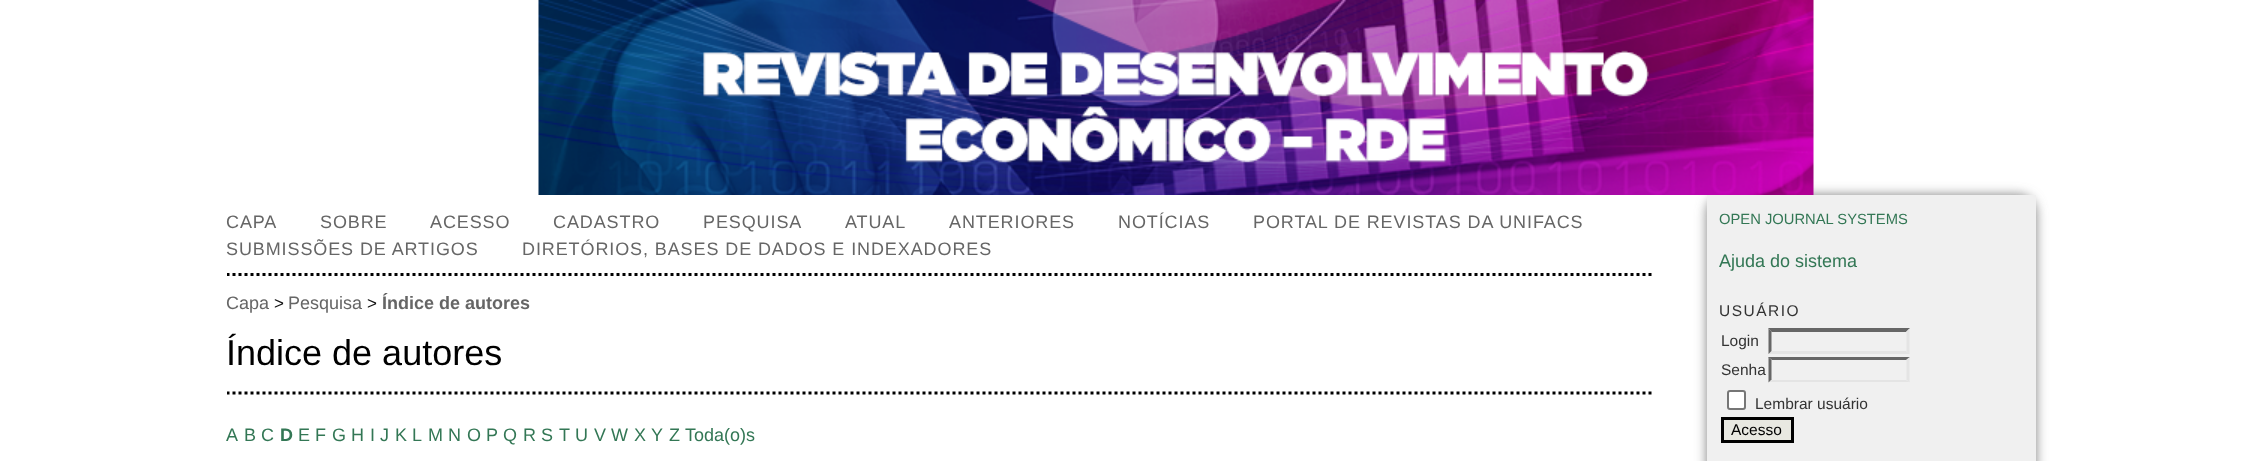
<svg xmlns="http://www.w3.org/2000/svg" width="2261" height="461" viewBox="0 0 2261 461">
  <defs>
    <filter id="blur1" x="-50%" y="-200%" width="200%" height="500%"><feGaussianBlur stdDeviation="6"/></filter>
    <clipPath id="clip1"><rect x="227" y="195" width="1425" height="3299"/></clipPath>
  </defs>
  <rect width="100%" height="100%" fill="#ffffff"/>
  <rect x="1707" y="195" width="329" height="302" rx="18" fill="#808080" filter="url(#blur1)"/>
  <image x="538" y="0" width="1276" height="195" href="img1.png"/>
  <g clip-path="url(#clip1)">
    <path d="M226.5 274.5H1651.5" fill="none" stroke="#000000" stroke-width="3" stroke-dasharray="3 3"/>
  </g>
  <text x="226" y="228" font-family="Liberation Sans" font-size="18" letter-spacing="0.9" fill="#666666">CAPA</text>
  <text x="320" y="228" font-family="Liberation Sans" font-size="18" letter-spacing="0.9" fill="#666666">SOBRE</text>
  <text x="430" y="228" font-family="Liberation Sans" font-size="18" letter-spacing="0.9" fill="#666666">ACESSO</text>
  <text x="553" y="228" font-family="Liberation Sans" font-size="18" letter-spacing="0.9" fill="#666666">CADASTRO</text>
  <text x="703" y="228" font-family="Liberation Sans" font-size="18" letter-spacing="0.9" fill="#666666">PESQUISA</text>
  <text x="845" y="228" font-family="Liberation Sans" font-size="18" letter-spacing="0.9" fill="#666666">ATUAL</text>
  <text x="949" y="228" font-family="Liberation Sans" font-size="18" letter-spacing="0.9" fill="#666666">ANTERIORES</text>
  <text x="1118" y="228" font-family="Liberation Sans" font-size="18" letter-spacing="0.9" fill="#666666">NOTÍCIAS</text>
  <text x="1253" y="228" font-family="Liberation Sans" font-size="18" letter-spacing="0.9" fill="#666666">PORTAL DE REVISTAS DA UNIFACS</text>
  <text x="226" y="255" font-family="Liberation Sans" font-size="18" letter-spacing="0.9" fill="#666666">SUBMISSÕES DE ARTIGOS</text>
  <text x="522" y="255" font-family="Liberation Sans" font-size="18" letter-spacing="0.9" fill="#666666">DIRETÓRIOS, BASES DE DADOS E INDEXADORES</text>
  <text x="226" y="309" font-family="Liberation Sans" font-size="18" fill="#666666">Capa</text>
  <text x="274" y="309" font-family="Liberation Sans" font-size="17" fill="#111111">&gt;</text>
  <text x="288" y="309" font-family="Liberation Sans" font-size="18" fill="#666666">Pesquisa</text>
  <text x="367" y="309" font-family="Liberation Sans" font-size="17" fill="#111111">&gt;</text>
  <text x="382" y="309" font-family="Liberation Sans" font-size="18" font-weight="bold" fill="#666666">Índice de autores</text>
  <text x="226" y="365" font-family="Liberation Sans" font-size="36" fill="#000000">Índice de autores</text>
  <g clip-path="url(#clip1)">
    <path d="M226.5 393H1651.5" fill="none" stroke="#000000" stroke-width="3" stroke-dasharray="3 3"/>
  </g>
  <text x="226" y="441" font-family="Liberation Sans" font-size="18" fill="#337755">A</text>
  <text x="244" y="441" font-family="Liberation Sans" font-size="18" fill="#337755">B</text>
  <text x="261" y="441" font-family="Liberation Sans" font-size="18" fill="#337755">C</text>
  <text x="280" y="441" font-family="Liberation Sans" font-size="18" font-weight="bold" fill="#337755">D</text>
  <text x="298" y="441" font-family="Liberation Sans" font-size="18" fill="#337755">E</text>
  <text x="315" y="441" font-family="Liberation Sans" font-size="18" fill="#337755">F</text>
  <text x="332" y="441" font-family="Liberation Sans" font-size="18" fill="#337755">G</text>
  <text x="351" y="441" font-family="Liberation Sans" font-size="18" fill="#337755">H</text>
  <text x="370" y="441" font-family="Liberation Sans" font-size="18" fill="#337755">I</text>
  <text x="380" y="441" font-family="Liberation Sans" font-size="18" fill="#337755">J</text>
  <text x="395" y="441" font-family="Liberation Sans" font-size="18" fill="#337755">K</text>
  <text x="412" y="441" font-family="Liberation Sans" font-size="18" fill="#337755">L</text>
  <text x="428" y="441" font-family="Liberation Sans" font-size="18" fill="#337755">M</text>
  <text x="448" y="441" font-family="Liberation Sans" font-size="18" fill="#337755">N</text>
  <text x="467" y="441" font-family="Liberation Sans" font-size="18" fill="#337755">O</text>
  <text x="486" y="441" font-family="Liberation Sans" font-size="18" fill="#337755">P</text>
  <text x="503" y="441" font-family="Liberation Sans" font-size="18" fill="#337755">Q</text>
  <text x="523" y="441" font-family="Liberation Sans" font-size="18" fill="#337755">R</text>
  <text x="541" y="441" font-family="Liberation Sans" font-size="18" fill="#337755">S</text>
  <text x="559" y="441" font-family="Liberation Sans" font-size="18" fill="#337755">T</text>
  <text x="575" y="441" font-family="Liberation Sans" font-size="18" fill="#337755">U</text>
  <text x="594" y="441" font-family="Liberation Sans" font-size="18" fill="#337755">V</text>
  <text x="611" y="441" font-family="Liberation Sans" font-size="18" fill="#337755">W</text>
  <text x="634" y="441" font-family="Liberation Sans" font-size="18" fill="#337755">X</text>
  <text x="651" y="441" font-family="Liberation Sans" font-size="18" fill="#337755">Y</text>
  <text x="669" y="441" font-family="Liberation Sans" font-size="18" fill="#337755">Z</text>
  <text x="685" y="441" font-family="Liberation Sans" font-size="18" fill="#337755">Toda(o)s</text>
  <rect x="1707" y="195" width="329" height="266" fill="#f0f0f0"/>
  <text x="1719" y="224" font-family="Liberation Sans" font-size="14.75" fill="#337755">OPEN JOURNAL SYSTEMS</text>
  <text x="1719" y="267" font-family="Liberation Sans" font-size="18" fill="#337755">Ajuda do sistema</text>
  <text x="1719" y="316" font-family="Liberation Sans" font-size="15.5" letter-spacing="1.5" fill="#333333">USUÁRIO</text>
  <text x="1721" y="346" font-family="Liberation Sans" font-size="15.5" fill="#333333">Login</text>
  <path d="M1768 328H1910L1906 332H1772Z" fill="#666666"/>
  <path d="M1909.5 328.5V354L1906.5 351V331.5Z" fill="#e4e4e4"/>
  <path d="M1910 354H1768L1772 351H1906Z" fill="#e4e4e4"/>
  <path d="M1768.5 354V328.5L1771.5 331.5V351Z" fill="#666666"/>
  <text x="1721" y="375" font-family="Liberation Sans" font-size="15.5" fill="#333333">Senha</text>
  <path d="M1768 357H1910L1906 360H1772Z" fill="#666666"/>
  <path d="M1909.5 357V382.5L1906.5 379.5V360Z" fill="#e4e4e4"/>
  <path d="M1910 382H1768L1772 380H1906Z" fill="#e4e4e4"/>
  <path d="M1768.5 382.5V357L1771.5 360V379.5Z" fill="#666666"/>
  <rect x="1728" y="391" width="17" height="18" rx="2" fill="#ffffff" stroke="#767676" stroke-width="2"/>
  <text x="1755" y="409" font-family="Liberation Sans" font-size="15.5" fill="#333333">Lembrar usuário</text>
  <rect x="1722.5" y="418.5" width="70" height="23" fill="#e8e8e1" stroke="#000000" stroke-width="3"/>
  <text x="1731" y="435" font-family="Liberation Sans" font-size="15.5" fill="#000000">Acesso</text>
</svg>
